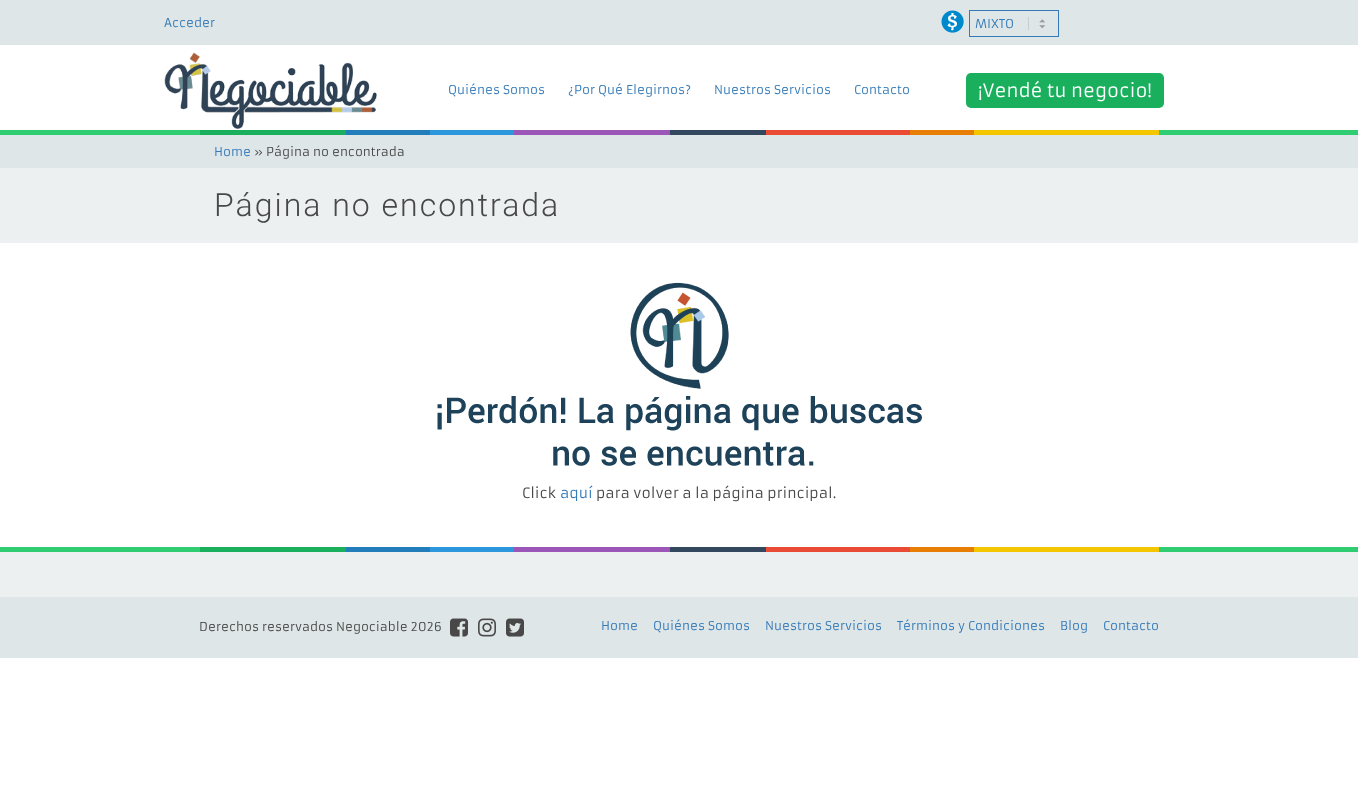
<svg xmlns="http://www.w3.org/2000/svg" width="1358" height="812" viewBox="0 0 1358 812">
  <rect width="100%" height="100%" fill="#ffffff"/>
  <rect x="0" y="0" width="1358" height="45" fill="#dfe6e8"/>
  <text x="164" y="27" font-family="Armata" font-size="12" fill="#337ab7">Acceder</text>
  <image x="941" y="10" width="23" height="23" href="img1.png"/>
  <image x="1028" y="17" width="18" height="13" href="img2.png"/>
  <rect x="969.5" y="10.5" width="89" height="26" fill="none" stroke="#337ab7"/>
  <text x="975" y="28" font-family="Armata" font-size="12" fill="#337ab7">MIXTO</text>
  <image x="0" y="130" width="1358" height="5" href="img3.png"/>
  <image x="164" y="52" width="213" height="77" href="img4.png"/>
  <text x="448" y="94" font-family="Armata" font-size="12" fill="#337ab7">Quiénes Somos</text>
  <text x="568" y="94" font-family="Armata" font-size="12" fill="#337ab7">¿Por Qué Elegirnos?</text>
  <text x="714" y="94" font-family="Armata" font-size="12" fill="#337ab7">Nuestros Servicios</text>
  <text x="854" y="94" font-family="Armata" font-size="12" fill="#337ab7">Contacto</text>
  <rect x="966" y="73" width="198" height="35" rx="5" fill="#1aaf5d"/>
  <text x="978" y="97" font-family="Armata" font-size="18" fill="#ffffff">¡Vendé tu negocio!</text>
  <rect x="0" y="135" width="1358" height="33" fill="#dfe6e8"/>
  <text x="214" y="156" font-family="Armata" font-size="12" fill="#337ab7">Home</text>
  <text x="254" y="156" font-family="Armata" font-size="12" fill="#484848">» Página no encontrada</text>
  <rect x="0" y="168" width="1358" height="75" fill="#ecf0f1"/>
  <text x="214" y="216" font-family="Roboto" font-size="32" font-weight="300" letter-spacing="2" fill="#484848">Página no encontrada</text>
  <image x="437" y="282" width="485" height="184" href="img5.png"/>
  <text x="522" y="498" font-family="Armata" font-size="14" fill="#484848">Click</text>
  <text x="560" y="498" font-family="Armata" font-size="14" fill="#337ab7">aquí</text>
  <text x="596" y="498" font-family="Armata" font-size="14" fill="#484848">para volver a la página principal.</text>
  <rect x="0" y="552" width="1358" height="45" fill="#ecf0f1"/>
  <image x="0" y="547" width="1358" height="5" href="img3.png"/>
  <rect x="0" y="597" width="1358" height="61" fill="#dfe6e8"/>
  <text x="199" y="631" font-family="Armata" font-size="12" fill="#484848">Derechos reservados Negociable 2026</text>
  <image x="450" y="618" width="18" height="19" href="img6.png"/>
  <image x="478" y="618" width="18" height="19" href="img7.png"/>
  <image x="506" y="618" width="18" height="19" href="img8.png"/>
  <text x="601" y="630" font-family="Armata" font-size="12" fill="#337ab7">Home</text>
  <text x="653" y="630" font-family="Armata" font-size="12" fill="#337ab7">Quiénes Somos</text>
  <text x="765" y="630" font-family="Armata" font-size="12" fill="#337ab7">Nuestros Servicios</text>
  <text x="897" y="630" font-family="Armata" font-size="12" fill="#337ab7">Términos y Condiciones</text>
  <text x="1060" y="630" font-family="Armata" font-size="12" fill="#337ab7">Blog</text>
  <text x="1103" y="630" font-family="Armata" font-size="12" fill="#337ab7">Contacto</text>
</svg>
